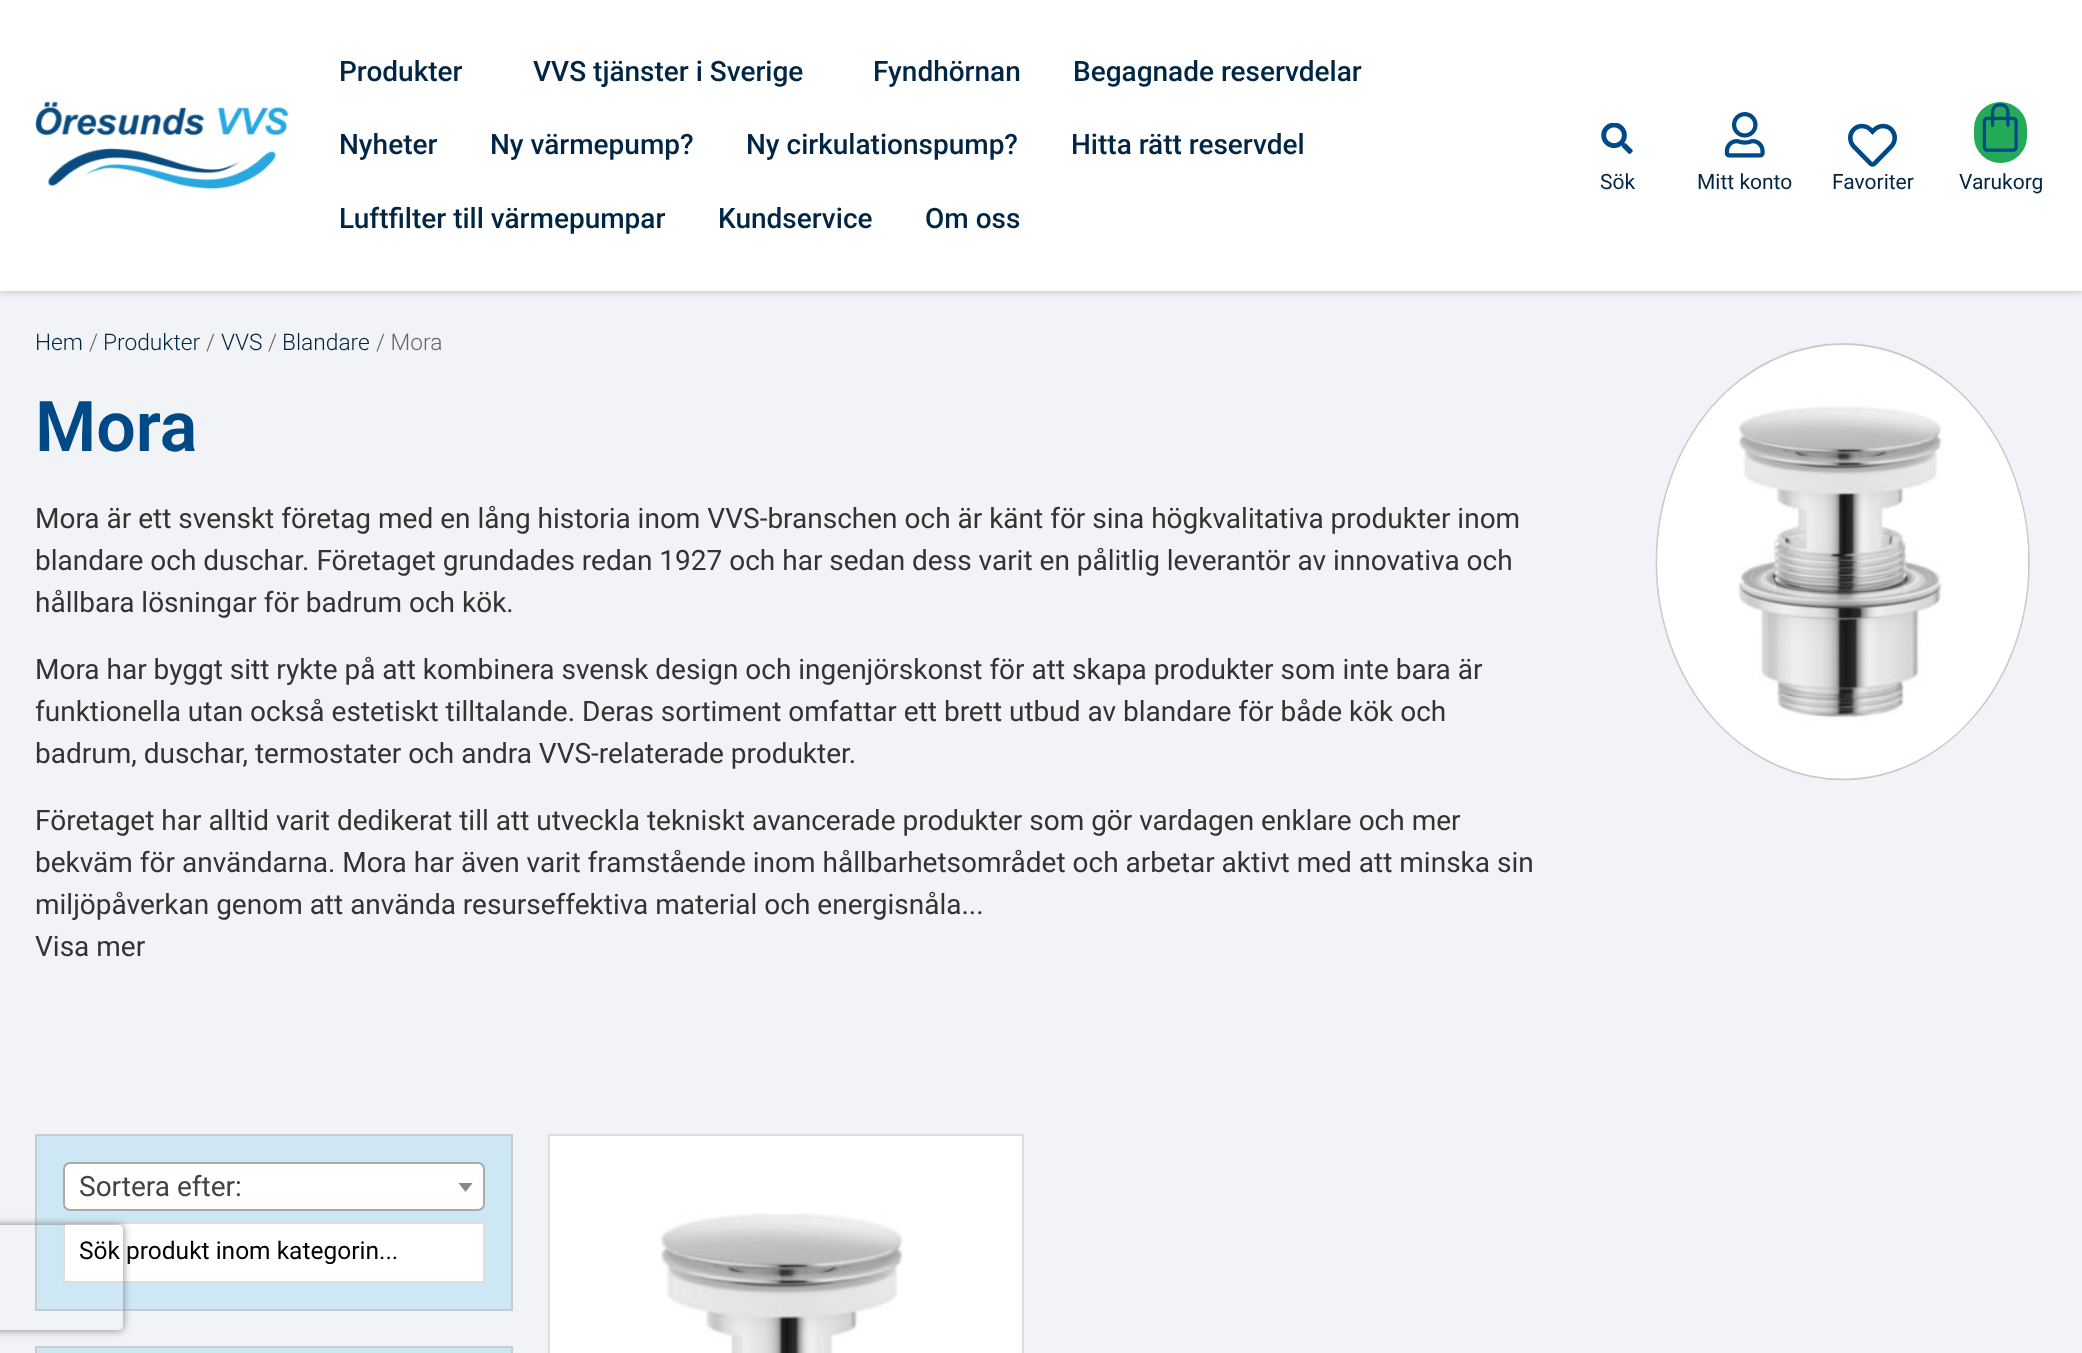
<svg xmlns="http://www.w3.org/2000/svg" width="2082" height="1353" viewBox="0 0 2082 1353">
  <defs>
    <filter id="blur1" x="-50%" y="-200%" width="200%" height="500%"><feGaussianBlur stdDeviation="4.5"/></filter>
    <clipPath id="clip1"><path d="M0 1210H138V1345H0ZM-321 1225H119C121 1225 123 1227 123 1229V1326C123 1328 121 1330 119 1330H-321C-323 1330-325 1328-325 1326V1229C-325 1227-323 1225-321 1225Z" clip-rule="evenodd"/></clipPath>
  </defs>
  <rect width="100%" height="100%" fill="#f1f3f7"/>
  <rect x="0" y="0" width="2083" height="291" fill="#000000" fill-opacity="0.25" filter="url(#blur1)"/>
  <rect x="0" y="0" width="2082" height="291" fill="#ffffff"/>
  <image x="35" y="101" width="254" height="89" href="img1.png"/>
  <text x="339" y="81" font-family="Roboto" font-size="28" font-weight="500" fill="#012544">Produkter</text>
  <text x="533" y="81" font-family="Roboto" font-size="28" font-weight="500" fill="#012544">VVS tjänster i Sverige</text>
  <text x="873" y="81" font-family="Roboto" font-size="28" font-weight="500" fill="#012544">Fyndhörnan</text>
  <text x="1073" y="81" font-family="Roboto" font-size="28" font-weight="500" fill="#012544">Begagnade reservdelar</text>
  <text x="339" y="154" font-family="Roboto" font-size="28" font-weight="500" fill="#012544">Nyheter</text>
  <text x="490" y="154" font-family="Roboto" font-size="28" font-weight="500" fill="#012544">Ny värmepump?</text>
  <text x="746" y="154" font-family="Roboto" font-size="28" font-weight="500" fill="#012544">Ny cirkulationspump?</text>
  <text x="1071" y="154" font-family="Roboto" font-size="28" font-weight="500" fill="#012544">Hitta rätt reservdel</text>
  <text x="339" y="228" font-family="Roboto" font-size="28" font-weight="500" fill="#012544">Luftfilter till värmepumpar</text>
  <text x="718" y="228" font-family="Roboto" font-size="28" font-weight="500" fill="#012544">Kundservice</text>
  <text x="925" y="228" font-family="Roboto" font-size="28" font-weight="500" fill="#012544">Om oss</text>
  <image x="1601" y="123" width="32" height="31" href="img2.png"/>
  <text x="1600" y="189" font-family="Roboto" font-size="21" fill="#012544">Sök</text>
  <image x="1724" y="112" width="41" height="46" href="img3.png"/>
  <text x="1697" y="189" font-family="Roboto" font-size="21" fill="#012544">Mitt konto</text>
  <image x="1848" y="123" width="49" height="44" href="img4.png"/>
  <text x="1832" y="189" font-family="Roboto" font-size="21" fill="#012544">Favoriter</text>
  <rect x="1974" y="102" width="53" height="61" rx="26.5" fill="#22aa58"/>
  <image x="1982" y="103" width="36" height="49" href="img5.png"/>
  <text x="1959" y="189" font-family="Roboto" font-size="21" fill="#012544">Varukorg</text>
  <text x="35" y="350" font-family="Roboto" font-size="22.75" font-weight="300" fill="#012544">Hem</text>
  <text x="89" y="350" font-family="Roboto" font-size="22.75" font-weight="300" fill="#666666">/</text>
  <text x="103" y="350" font-family="Roboto" font-size="22.75" font-weight="300" fill="#012544">Produkter</text>
  <text x="206" y="350" font-family="Roboto" font-size="22.75" font-weight="300" fill="#666666">/</text>
  <text x="221" y="350" font-family="Roboto" font-size="22.75" font-weight="300" fill="#012544">VVS</text>
  <text x="268" y="350" font-family="Roboto" font-size="22.75" font-weight="300" fill="#666666">/</text>
  <text x="282" y="350" font-family="Roboto" font-size="22.75" font-weight="300" fill="#012544">Blandare</text>
  <text x="376" y="350" font-family="Roboto" font-size="22.75" font-weight="300" fill="#666666">/ Mora</text>
  <ellipse cx="1843" cy="562" rx="187" ry="219" fill="#ffffff"/>
  <path d="M1843 344C1945.5 344 2029 441.5 2029 562C2029 682 1945.5 779.5 1843 779.5C1740 779.5 1656.5 682 1656.5 562C1656.5 441.5 1740 344 1843 344Z" fill="none" stroke="#c6cccf" stroke-width="1.8"/>
  <image x="1657" y="378" width="371" height="368" href="img6.png"/>
  <text x="35" y="451" font-family="Roboto" font-size="70" font-weight="600" fill="#004987">Mora</text>
  <text x="35" y="528" font-family="Roboto" font-size="28" fill="#333333">Mora är ett svenskt företag med en lång historia inom VVS-branschen och är känt för sina högkvalitativa produkter inom</text>
  <text x="35" y="570" font-family="Roboto" font-size="28" fill="#333333">blandare och duschar. Företaget grundades redan 1927 och har sedan dess varit en pålitlig leverantör av innovativa och</text>
  <text x="35" y="612" font-family="Roboto" font-size="28" fill="#333333">hållbara lösningar för badrum och kök.</text>
  <text x="35" y="679" font-family="Roboto" font-size="28" fill="#333333">Mora har byggt sitt rykte på att kombinera svensk design och ingenjörskonst för att skapa produkter som inte bara är</text>
  <text x="35" y="721" font-family="Roboto" font-size="28" fill="#333333">funktionella utan också estetiskt tilltalande. Deras sortiment omfattar ett brett utbud av blandare för både kök och</text>
  <text x="35" y="763" font-family="Roboto" font-size="28" fill="#333333">badrum, duschar, termostater och andra VVS-relaterade produkter.</text>
  <text x="35" y="830" font-family="Roboto" font-size="28" fill="#333333">Företaget har alltid varit dedikerat till att utveckla tekniskt avancerade produkter som gör vardagen enklare och mer</text>
  <text x="35" y="872" font-family="Roboto" font-size="28" fill="#333333">bekväm för användarna. Mora har även varit framstående inom hållbarhetsområdet och arbetar aktivt med att minska sin</text>
  <text x="35" y="914" font-family="Roboto" font-size="28" fill="#333333">miljöpåverkan genom att använda resurseffektiva material och energisnåla...</text>
  <text x="35" y="956" font-family="Roboto" font-size="28" fill="#333333">Visa mer</text>
  <rect x="36" y="1135" width="476" height="175" fill="#cde7f4" stroke="#c6cccf" stroke-width="2"/>
  <rect x="64" y="1163" width="420" height="47" rx="6" fill="#ffffff" stroke="#aaaaaa" stroke-width="2"/>
  <text x="79" y="1196" font-family="Roboto" font-size="28" fill="#444444">Sortera efter:</text>
  <path d="M458.5 1183H472.5L465.5 1192Z" fill="#888888"/>
  <rect x="64" y="1223" width="420" height="59" fill="#ffffff" stroke="#dddddd" stroke-width="2"/>
  <text x="79" y="1259" font-family="Roboto" font-size="24.5" fill="#020202">Sök produkt inom kategorin...</text>
  <rect x="36" y="1347" width="476" height="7" fill="#cde6f3" stroke="#c6cccf" stroke-width="2"/>
  <rect x="549" y="1135" width="474" height="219" fill="#ffffff" stroke="#dddddd" stroke-width="2"/>
  <image x="660" y="1213" width="243" height="140" href="img7.png"/>
  <g clip-path="url(#clip1)">
    <rect x="-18" y="1225" width="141" height="105" rx="4" fill="#808080" filter="url(#blur1)"/>
  </g>
</svg>
